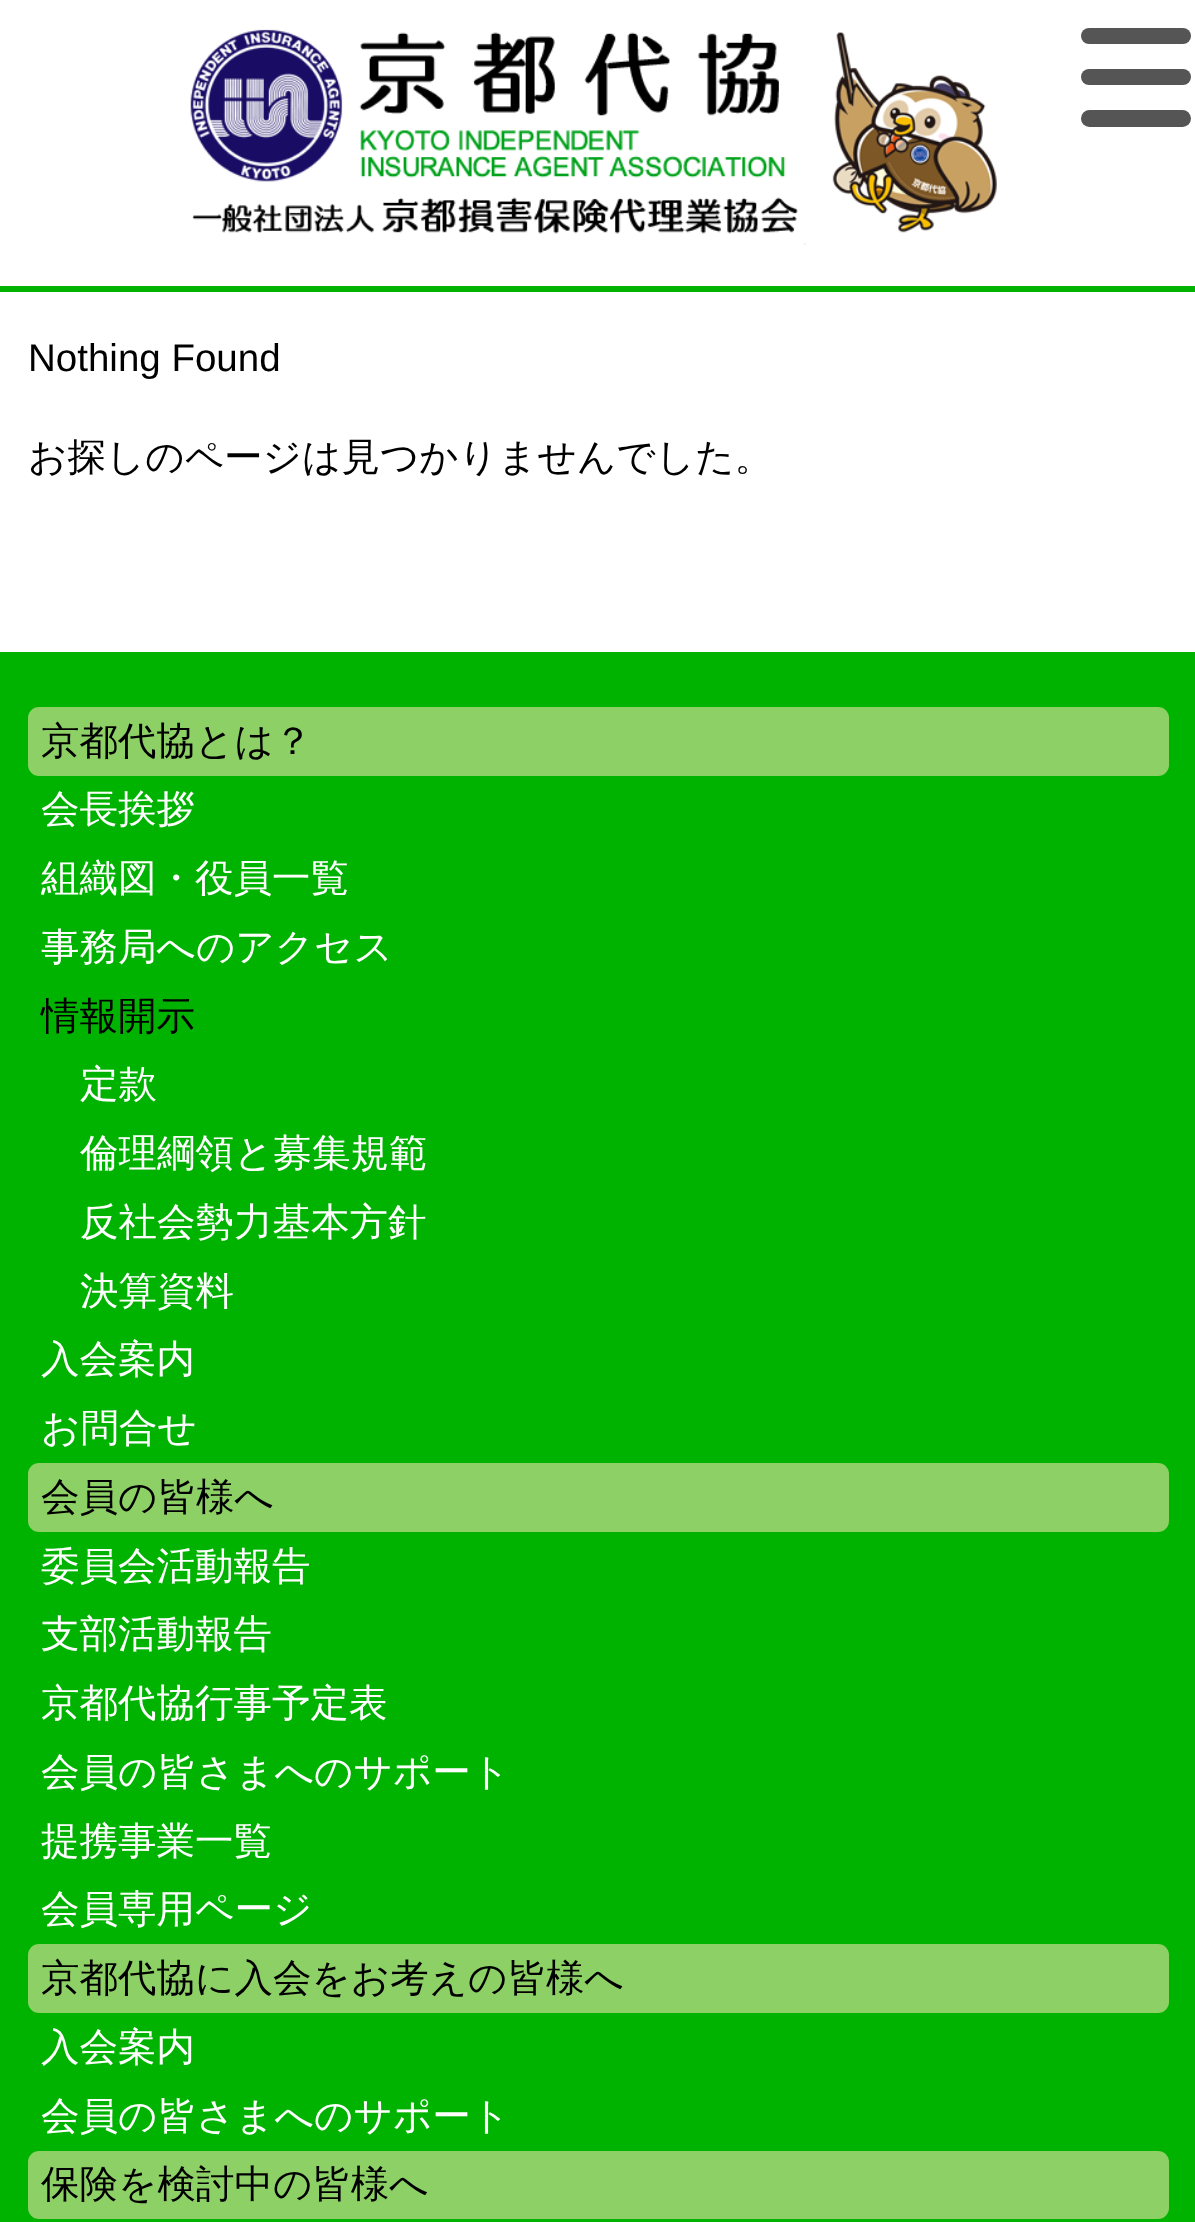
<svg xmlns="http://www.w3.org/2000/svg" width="1195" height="2222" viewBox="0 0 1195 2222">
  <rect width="100%" height="100%" fill="#ffffff"/>
  <rect x="0" y="286" width="1195" height="6" fill="#00b300"/>
  <image x="190" y="29" width="807" height="216" href="img1.png"/>
  <rect x="1081" y="28" width="110" height="16" rx="8" fill="#555555"/>
  <rect x="1081" y="69" width="110" height="16" rx="8" fill="#555555"/>
  <rect x="1081" y="110" width="110" height="17" rx="8.5" fill="#555555"/>
  <text x="28" y="371" font-family="Liberation Sans" font-size="38.5" fill="#000000">Nothing Found</text>
  <text x="28" y="470" font-family="WenQuanYi Zen Hei" font-size="38.5" font-weight="500" fill="#000000">お探しのページは見つかりませんでした。</text>
  <rect x="0" y="652" width="1195" height="1570" fill="#00b300"/>
  <rect x="28" y="707" width="1141" height="69" rx="11" fill="#8dd066"/>
  <text x="41" y="754" font-family="WenQuanYi Zen Hei" font-size="38.5" font-weight="500" fill="#000000">京都代協とは？</text>
  <text x="41" y="822" font-family="WenQuanYi Zen Hei" font-size="38.5" font-weight="500" fill="#ffffff">会長挨拶</text>
  <text x="41" y="891" font-family="WenQuanYi Zen Hei" font-size="38.5" font-weight="500" fill="#ffffff">組織図・役員一覧</text>
  <text x="41" y="960" font-family="WenQuanYi Zen Hei" font-size="38.5" font-weight="500" fill="#ffffff">事務局へのアクセス</text>
  <text x="41" y="1029" font-family="WenQuanYi Zen Hei" font-size="38.5" font-weight="500" fill="#000000">情報開示</text>
  <text x="80" y="1097" font-family="WenQuanYi Zen Hei" font-size="38.5" font-weight="500" fill="#ffffff">定款</text>
  <text x="80" y="1166" font-family="WenQuanYi Zen Hei" font-size="38.5" font-weight="500" fill="#ffffff">倫理綱領と募集規範</text>
  <text x="80" y="1235" font-family="WenQuanYi Zen Hei" font-size="38.5" font-weight="500" fill="#ffffff">反社会勢力基本方針</text>
  <text x="80" y="1304" font-family="WenQuanYi Zen Hei" font-size="38.5" font-weight="500" fill="#ffffff">決算資料</text>
  <text x="41" y="1372" font-family="WenQuanYi Zen Hei" font-size="38.5" font-weight="500" fill="#ffffff">入会案内</text>
  <text x="41" y="1441" font-family="WenQuanYi Zen Hei" font-size="38.5" font-weight="500" fill="#ffffff">お問合せ</text>
  <rect x="28" y="1463" width="1141" height="69" rx="11" fill="#8dd066"/>
  <text x="41" y="1510" font-family="WenQuanYi Zen Hei" font-size="38.5" font-weight="500" fill="#000000">会員の皆様へ</text>
  <text x="41" y="1579" font-family="WenQuanYi Zen Hei" font-size="38.5" font-weight="500" fill="#ffffff">委員会活動報告</text>
  <text x="41" y="1647" font-family="WenQuanYi Zen Hei" font-size="38.5" font-weight="500" fill="#ffffff">支部活動報告</text>
  <text x="41" y="1716" font-family="WenQuanYi Zen Hei" font-size="38.5" font-weight="500" fill="#ffffff">京都代協行事予定表</text>
  <text x="41" y="1785" font-family="WenQuanYi Zen Hei" font-size="38.5" font-weight="500" fill="#ffffff">会員の皆さまへのサポート</text>
  <text x="41" y="1854" font-family="WenQuanYi Zen Hei" font-size="38.5" font-weight="500" fill="#ffffff">提携事業一覧</text>
  <text x="41" y="1922" font-family="WenQuanYi Zen Hei" font-size="38.5" font-weight="500" fill="#ffffff">会員専用ページ</text>
  <rect x="28" y="1944" width="1141" height="69" rx="11" fill="#8dd066"/>
  <text x="41" y="1991" font-family="WenQuanYi Zen Hei" font-size="38.5" font-weight="500" fill="#000000">京都代協に入会をお考えの皆様へ</text>
  <text x="41" y="2060" font-family="WenQuanYi Zen Hei" font-size="38.5" font-weight="500" fill="#ffffff">入会案内</text>
  <text x="41" y="2129" font-family="WenQuanYi Zen Hei" font-size="38.5" font-weight="500" fill="#ffffff">会員の皆さまへのサポート</text>
  <rect x="28" y="2151" width="1141" height="68" rx="11" fill="#8dd066"/>
  <text x="41" y="2197" font-family="WenQuanYi Zen Hei" font-size="38.5" font-weight="500" fill="#000000">保険を検討中の皆様へ</text>
</svg>
